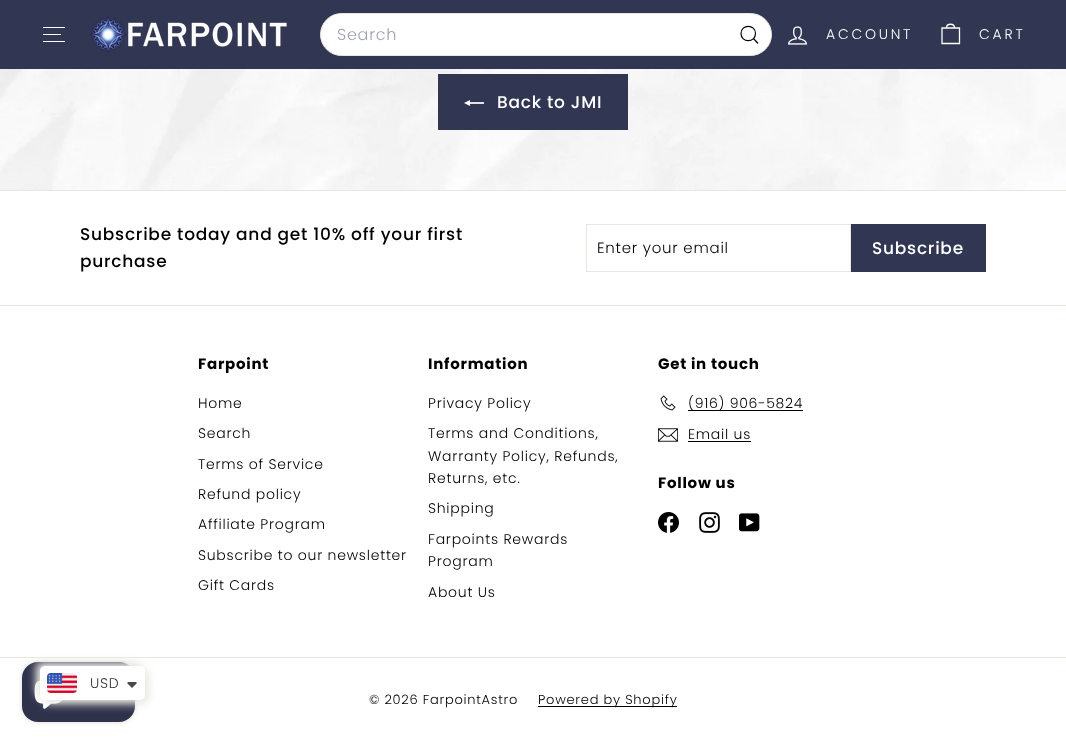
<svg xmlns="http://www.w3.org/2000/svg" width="1066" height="743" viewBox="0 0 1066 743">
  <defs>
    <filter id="blur1" x="-50%" y="-200%" width="200%" height="500%"><feGaussianBlur stdDeviation="2.5"/></filter>
    <filter id="blur2" x="-50%" y="-200%" width="200%" height="500%"><feGaussianBlur stdDeviation="4.5"/></filter>
  </defs>
  <rect width="100%" height="100%" fill="#ffffff"/>
  <rect x="0" y="657" width="1066" height="1" fill="#e8e8e1"/>
  <rect x="22" y="662" width="113" height="60" rx="16" fill="#000000" fill-opacity="0.15" filter="url(#blur1)"/>
  <rect x="22" y="662" width="113" height="60" rx="16" fill="#2f324b"/>
  <image x="34" y="680" width="28" height="29" href="img1.png"/>
  <rect x="0" y="0" width="1066" height="69" fill="#313652"/>
  <rect x="43" y="27" width="22" height="1" fill="#ffffff"/>
  <rect x="43" y="34" width="18" height="1" fill="#ffffff"/>
  <rect x="43" y="41" width="22" height="1" fill="#ffffff"/>
  <image x="90" y="16" width="197" height="37" href="img2.png"/>
  <rect x="320.5" y="13.5" width="451" height="42" rx="21" fill="#ffffff" stroke="#e8e8e1"/>
  <text x="337" y="40" font-family="Poppins" font-size="16" font-weight="300" letter-spacing="0.75" fill="#9ca3af">Search</text>
  <path d="M755.5 33.5C755.5 43 741 43 741 33.5C741 24 755.5 24 755.5 33.5M758 43.5L753.5 38.5" fill="none" stroke="#000000" stroke-width="1.2"/>
  <image x="788" y="26" width="19" height="19" href="img3.png"/>
  <text x="826" y="39" font-family="Poppins" font-size="14" font-weight="300" letter-spacing="2.75" fill="#ffffff">ACCOUNT</text>
  <path d="M946.5 28C946.5 23 954.5 23 954.5 28M942 28H959.5V43.5H942Z" fill="none" stroke="#ffffff" stroke-width="1.3"/>
  <text x="979" y="39" font-family="Poppins" font-size="14" font-weight="300" letter-spacing="2.75" fill="#ffffff">CART</text>
  <image x="0" y="69" width="1066" height="121" href="img4.png"/>
  <rect x="438" y="74" width="190" height="56" fill="#313652"/>
  <image x="464" y="100" width="20" height="6" href="img5.png"/>
  <text x="497" y="108" font-family="Poppins" font-size="17" font-weight="500" letter-spacing="0.75" fill="#ffffff">Back to JMI</text>
  <rect x="0" y="190" width="1066" height="1" fill="#e8e8e1"/>
  <text x="80" y="240" font-family="Poppins" font-size="17" font-weight="500" letter-spacing="0.75" fill="#000000">Subscribe today and get 10% off your first</text>
  <text x="80" y="267" font-family="Poppins" font-size="17" font-weight="500" letter-spacing="0.75" fill="#000000">purchase</text>
  <rect x="586.5" y="224.5" width="264" height="47" fill="none" stroke="#e8e8e1"/>
  <text x="597" y="253" font-family="Poppins" font-size="15" font-weight="300" letter-spacing="0.75" fill="#000000">Enter your email</text>
  <rect x="851" y="224" width="135" height="48" fill="#313652"/>
  <text x="872" y="254" font-family="Poppins" font-size="17" font-weight="500" letter-spacing="0.75" fill="#ffffff">Subscribe</text>
  <rect x="0" y="305" width="1066" height="1" fill="#e8e8e1"/>
  <text x="198" y="369" font-family="Poppins" font-size="15" font-weight="bold" letter-spacing="0.75" fill="#000000">Farpoint</text>
  <text x="198" y="408" font-family="Poppins" font-size="14" font-weight="300" letter-spacing="0.75" fill="#000000">Home</text>
  <text x="198" y="438" font-family="Poppins" font-size="14" font-weight="300" letter-spacing="0.75" fill="#000000">Search</text>
  <text x="198" y="469" font-family="Poppins" font-size="14" font-weight="300" letter-spacing="0.75" fill="#000000">Terms of Service</text>
  <text x="198" y="499" font-family="Poppins" font-size="14" font-weight="300" letter-spacing="0.75" fill="#000000">Refund policy</text>
  <text x="198" y="529" font-family="Poppins" font-size="14" font-weight="300" letter-spacing="0.75" fill="#000000">Affiliate Program</text>
  <text x="198" y="560" font-family="Poppins" font-size="14" font-weight="300" letter-spacing="0.75" fill="#000000">Subscribe to our newsletter</text>
  <text x="198" y="590" font-family="Poppins" font-size="14" font-weight="300" letter-spacing="0.75" fill="#000000">Gift Cards</text>
  <text x="428" y="369" font-family="Poppins" font-size="15" font-weight="bold" letter-spacing="0.75" fill="#000000">Information</text>
  <text x="428" y="408" font-family="Poppins" font-size="14" font-weight="300" letter-spacing="0.75" fill="#000000">Privacy Policy</text>
  <text x="428" y="438" font-family="Poppins" font-size="14" font-weight="300" letter-spacing="0.75" fill="#000000">Terms and Conditions,</text>
  <text x="428" y="461" font-family="Poppins" font-size="14" font-weight="300" letter-spacing="0.75" fill="#000000">Warranty Policy, Refunds,</text>
  <text x="428" y="483" font-family="Poppins" font-size="14" font-weight="300" letter-spacing="0.75" fill="#000000">Returns, etc.</text>
  <text x="428" y="513" font-family="Poppins" font-size="14" font-weight="300" letter-spacing="0.75" fill="#000000">Shipping</text>
  <text x="428" y="544" font-family="Poppins" font-size="14" font-weight="300" letter-spacing="0.75" fill="#000000">Farpoints Rewards</text>
  <text x="428" y="566" font-family="Poppins" font-size="14" font-weight="300" letter-spacing="0.75" fill="#000000">Program</text>
  <text x="428" y="597" font-family="Poppins" font-size="14" font-weight="300" letter-spacing="0.75" fill="#000000">About Us</text>
  <text x="658" y="369" font-family="Poppins" font-size="15" font-weight="bold" letter-spacing="0.75" fill="#000000">Get in touch</text>
  <image x="660" y="395" width="16" height="16" href="img6.png"/>
  <rect x="688" y="410" width="115" height="1" fill="#000000"/>
  <text x="688" y="408" font-family="Poppins" font-size="14" font-weight="300" letter-spacing="0.75" fill="#000000">(916) 906-5824</text>
  <image x="658" y="428" width="20" height="14" href="img7.png"/>
  <text x="688" y="439" font-family="Poppins" font-size="14" font-weight="300" letter-spacing="0.75" fill="#000000">Email us</text>
  <rect x="688" y="441" width="63" height="1" fill="#000000"/>
  <text x="658" y="488" font-family="Poppins" font-size="15" font-weight="bold" letter-spacing="0.75" fill="#000000">Follow us</text>
  <image x="658" y="512" width="21" height="21" href="img8.png"/>
  <image x="699" y="512" width="21" height="21" href="img9.png"/>
  <image x="739" y="513" width="21" height="19" href="img10.png"/>
  <text x="369" y="704" font-family="Poppins" font-size="13" font-weight="300" letter-spacing="0.75" fill="#000000">© 2026 FarpointAstro</text>
  <rect x="538" y="706" width="139" height="1" fill="#000000"/>
  <text x="538" y="704" font-family="Poppins" font-size="13" font-weight="300" letter-spacing="0.75" fill="#000000">Powered by Shopify</text>
  <rect x="36" y="662" width="105" height="34" rx="5" fill="#e8e8e2" filter="url(#blur2)"/>
  <rect x="44" y="670" width="105" height="34" rx="5" fill="#e8e8e2" filter="url(#blur2)"/>
  <rect x="40" y="666" width="105" height="34" rx="5" fill="#ffffff"/>
  <image x="47" y="673" width="30" height="20" href="img11.png"/>
  <text x="90" y="688" font-family="Poppins" font-size="14" font-weight="300" letter-spacing="0.75" fill="#333333">USD</text>
  <path d="M129 682C128 682 127.5 682.5 127 683L132 688L137 683L136 682Z" fill="#474942"/>
</svg>
